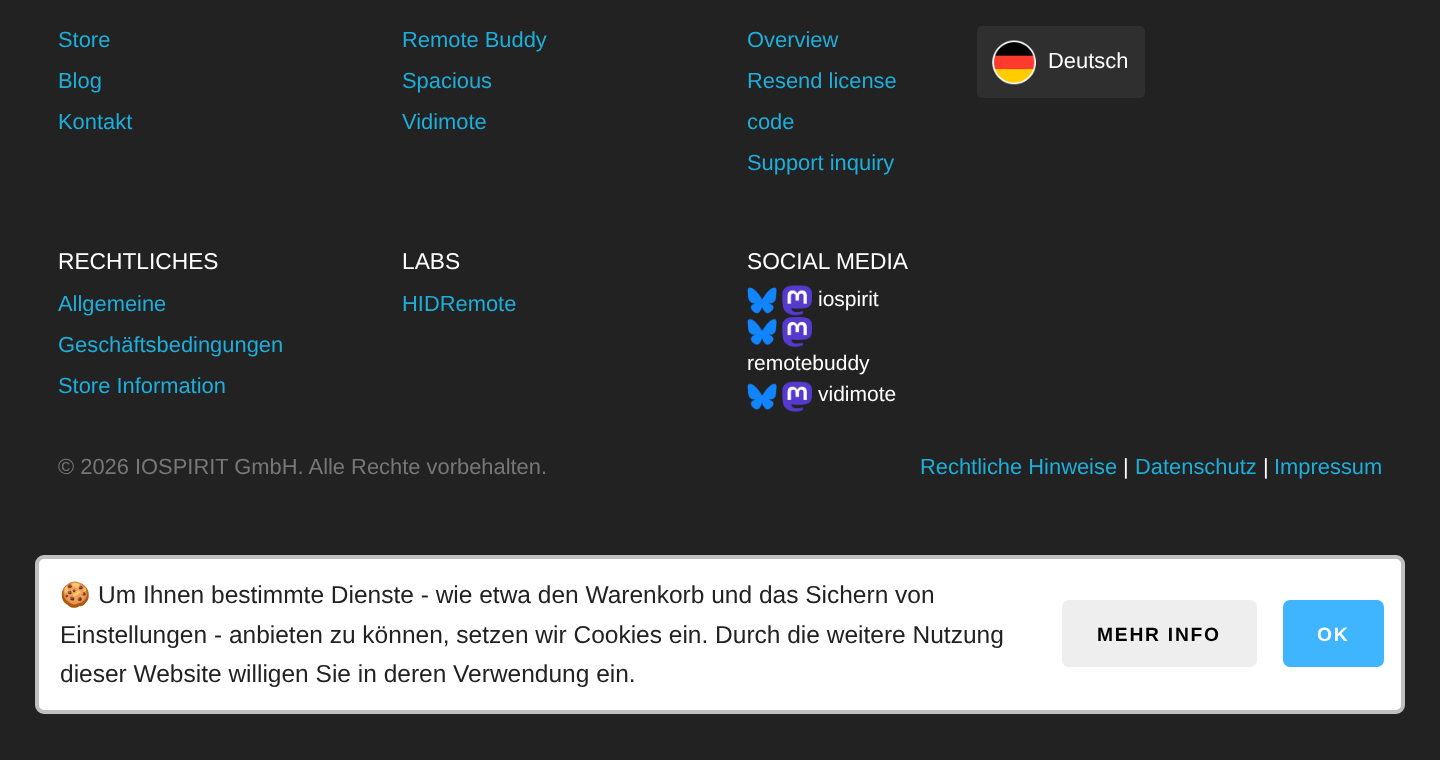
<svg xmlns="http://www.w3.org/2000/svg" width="1440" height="760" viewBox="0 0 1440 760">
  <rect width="100%" height="100%" fill="#222222"/>
  <text x="58" y="47" font-family="Liberation Sans" font-size="21.9" fill="#1eaedb">Store</text>
  <text x="58" y="88" font-family="Liberation Sans" font-size="21.9" fill="#1eaedb">Blog</text>
  <text x="58" y="129" font-family="Liberation Sans" font-size="21.9" fill="#1eaedb">Kontakt</text>
  <text x="402" y="47" font-family="Liberation Sans" font-size="21.9" fill="#1eaedb">Remote Buddy</text>
  <text x="402" y="88" font-family="Liberation Sans" font-size="21.9" fill="#1eaedb">Spacious</text>
  <text x="402" y="129" font-family="Liberation Sans" font-size="21.9" fill="#1eaedb">Vidimote</text>
  <text x="747" y="47" font-family="Liberation Sans" font-size="21.9" fill="#1eaedb">Overview</text>
  <text x="747" y="88" font-family="Liberation Sans" font-size="21.9" fill="#1eaedb">Resend license</text>
  <text x="747" y="129" font-family="Liberation Sans" font-size="21.9" fill="#1eaedb">code</text>
  <text x="747" y="170" font-family="Liberation Sans" font-size="21.9" fill="#1eaedb">Support inquiry</text>
  <rect x="977" y="26" width="168" height="72" rx="5" fill="#2f2f2f"/>
  <image x="992" y="40" width="44" height="45" href="img1.png"/>
  <text x="1048" y="68" font-family="Liberation Sans" font-size="21.9" fill="#ffffff">Deutsch</text>
  <text x="58" y="269" font-family="Liberation Sans" font-size="22.75" fill="#ffffff">RECHTLICHES</text>
  <text x="58" y="311" font-family="Liberation Sans" font-size="21.9" fill="#1eaedb">Allgemeine</text>
  <text x="58" y="352" font-family="Liberation Sans" font-size="21.9" fill="#1eaedb">Geschäftsbedingungen</text>
  <text x="58" y="393" font-family="Liberation Sans" font-size="21.9" fill="#1eaedb">Store Information</text>
  <text x="402" y="269" font-family="Liberation Sans" font-size="22.75" fill="#ffffff">LABS</text>
  <text x="402" y="311" font-family="Liberation Sans" font-size="21.9" fill="#1eaedb">HIDRemote</text>
  <text x="747" y="269" font-family="Liberation Sans" font-size="22.75" fill="#ffffff">SOCIAL MEDIA</text>
  <image x="747" y="287" width="30" height="27" href="img2.png"/>
  <image x="782" y="285" width="30" height="31" href="img3.png"/>
  <text x="818" y="306" font-family="Liberation Sans" font-size="21" fill="#ffffff">iospirit</text>
  <image x="747" y="318" width="30" height="28" href="img4.png"/>
  <image x="782" y="317" width="30" height="30" href="img5.png"/>
  <text x="747" y="370" font-family="Liberation Sans" font-size="21" fill="#ffffff">remotebuddy</text>
  <image x="747" y="383" width="30" height="27" href="img6.png"/>
  <image x="782" y="381" width="30" height="31" href="img7.png"/>
  <text x="818" y="401" font-family="Liberation Sans" font-size="21" fill="#ffffff">vidimote</text>
  <text x="58" y="474" font-family="Liberation Sans" font-size="21.9" fill="#777777">© 2026 IOSPIRIT GmbH. Alle Rechte vorbehalten.</text>
  <text x="920" y="474" font-family="Liberation Sans" font-size="21.9" fill="#1eaedb">Rechtliche Hinweise</text>
  <text x="1123" y="474" font-family="Liberation Sans" font-size="21.9" fill="#ffffff">|</text>
  <text x="1135" y="474" font-family="Liberation Sans" font-size="21.9" fill="#1eaedb">Datenschutz</text>
  <text x="1263" y="474" font-family="Liberation Sans" font-size="21.9" fill="#ffffff">|</text>
  <text x="1274" y="474" font-family="Liberation Sans" font-size="21.9" fill="#1eaedb">Impressum</text>
  <rect x="37" y="557" width="1366" height="155" rx="7" fill="#ffffff" stroke="#c0c0c0" stroke-width="4"/>
  <text x="60" y="603" font-family="Noto Color Emoji" font-size="24.5" fill="#222222">🍪</text>
  <text x="98" y="603" font-family="Liberation Sans" font-size="24.5" fill="#222222">Um Ihnen bestimmte Dienste - wie etwa den Warenkorb und das Sichern von</text>
  <text x="60" y="643" font-family="Liberation Sans" font-size="24.5" fill="#222222">Einstellungen - anbieten zu können, setzen wir Cookies ein. Durch die weitere Nutzung</text>
  <text x="60" y="682" font-family="Liberation Sans" font-size="24.5" fill="#222222">dieser Website willigen Sie in deren Verwendung ein.</text>
  <rect x="1062" y="600" width="195" height="67" rx="7" fill="#eeeeee"/>
  <text x="1097" y="641" font-family="Liberation Sans" font-size="19.25" font-weight="bold" letter-spacing="1.75" fill="#000000">MEHR INFO</text>
  <rect x="1283" y="600" width="101" height="67" rx="7" fill="#3fb5ff"/>
  <text x="1317" y="641" font-family="Liberation Sans" font-size="19.25" font-weight="bold" letter-spacing="1.75" fill="#ffffff">OK</text>
</svg>
